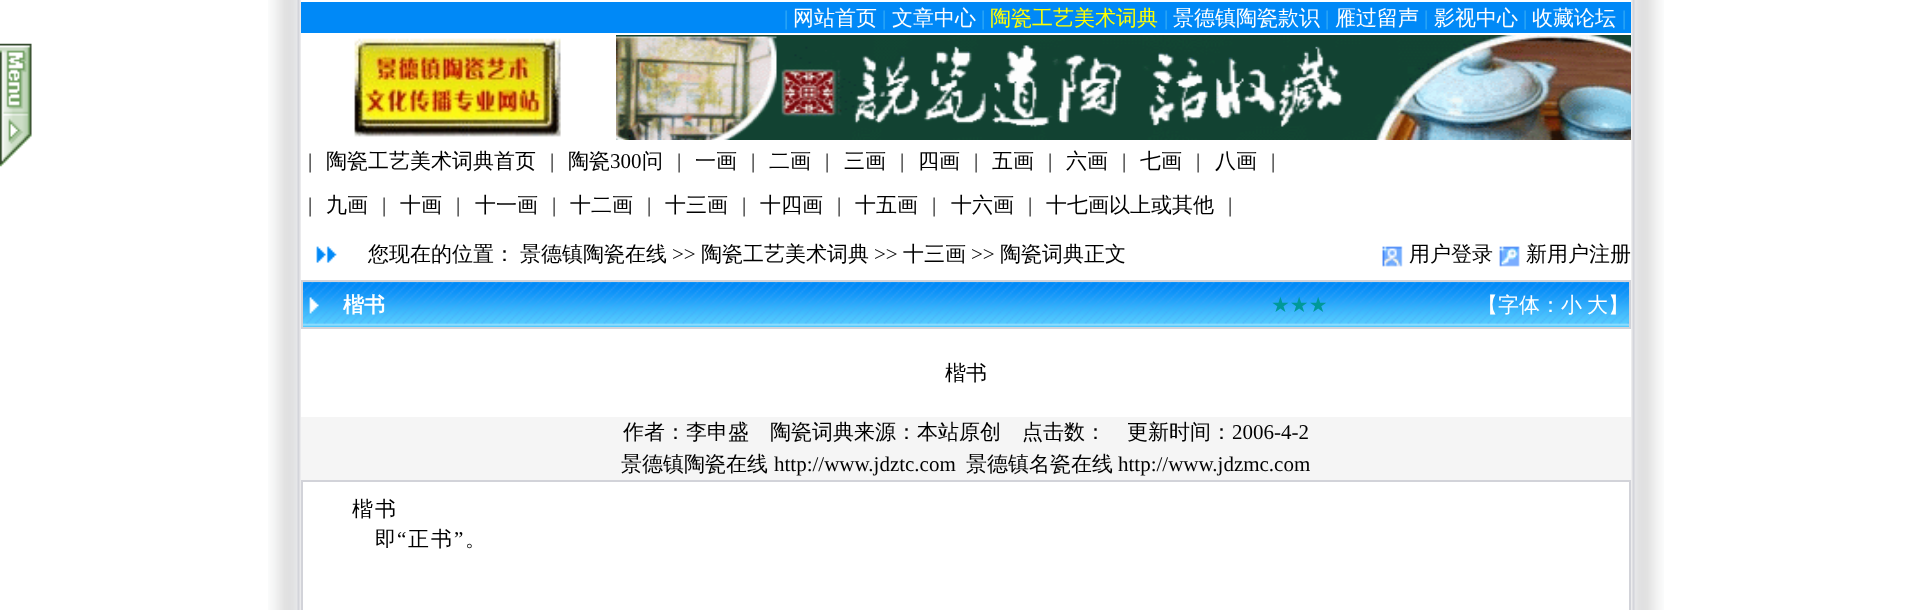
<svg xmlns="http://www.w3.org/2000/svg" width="1932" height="610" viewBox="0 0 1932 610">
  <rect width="100%" height="100%" fill="#ffffff"/>
  <image x="268" y="0" width="1396" height="610" href="img1.png"/>
  <image x="0" y="43" width="32" height="124" href="img2.png"/>
  <rect x="301" y="33" width="1330" height="247" fill="#ffffff"/>
  <rect x="301" y="2" width="1330" height="31" fill="#0089f7"/>
  <rect x="301" y="0" width="1330" height="2" fill="#ffffff"/>
  <text x="784" y="25" font-family="Liberation Serif" font-size="21" fill="#3ab1f5">|</text>
  <text x="793" y="25" font-family="WenQuanYi Zen Hei" font-size="21" font-weight="500" fill="#ffffff">网站首页</text>
  <text x="882" y="25" font-family="Liberation Serif" font-size="21" fill="#3ab1f5">|</text>
  <text x="892" y="25" font-family="WenQuanYi Zen Hei" font-size="21" font-weight="500" fill="#ffffff">文章中心</text>
  <text x="981" y="25" font-family="Liberation Serif" font-size="21" fill="#3ab1f5">|</text>
  <text x="990" y="25" font-family="WenQuanYi Zen Hei" font-size="21" font-weight="500" fill="#ffff00">陶瓷工艺美术词典</text>
  <text x="1164" y="25" font-family="Liberation Serif" font-size="21" fill="#3ab1f5">|</text>
  <text x="1173" y="25" font-family="WenQuanYi Zen Hei" font-size="21" font-weight="500" fill="#ffffff">景德镇陶瓷款识</text>
  <text x="1325" y="25" font-family="Liberation Serif" font-size="21" fill="#3ab1f5">|</text>
  <text x="1335" y="25" font-family="WenQuanYi Zen Hei" font-size="21" font-weight="500" fill="#ffffff">雁过留声</text>
  <text x="1424" y="25" font-family="Liberation Serif" font-size="21" fill="#3ab1f5">|</text>
  <text x="1434" y="25" font-family="WenQuanYi Zen Hei" font-size="21" font-weight="500" fill="#ffffff">影视中心</text>
  <text x="1523" y="25" font-family="Liberation Serif" font-size="21" fill="#3ab1f5">|</text>
  <text x="1532" y="25" font-family="WenQuanYi Zen Hei" font-size="21" font-weight="500" fill="#ffffff">收藏论坛</text>
  <text x="1622" y="25" font-family="Liberation Serif" font-size="21" fill="#3ab1f5">|</text>
  <image x="354" y="38" width="207" height="99" href="img3.png"/>
  <image x="616" y="35" width="1015" height="105" href="img4.png"/>
  <text x="308" y="168" font-family="Liberation Serif" font-size="21" fill="#000000">|</text>
  <text x="326" y="168" font-family="WenQuanYi Zen Hei" font-size="21" font-weight="500" fill="#000000">陶瓷工艺美术词典首页</text>
  <text x="550" y="168" font-family="Liberation Serif" font-size="21" fill="#000000">|</text>
  <text x="568" y="168" font-family="WenQuanYi Zen Hei" font-size="21" font-weight="500" fill="#000000">陶瓷</text>
  <text x="610" y="168" font-family="Liberation Serif" font-size="21" fill="#000000">300</text>
  <text x="642" y="168" font-family="WenQuanYi Zen Hei" font-size="21" font-weight="500" fill="#000000">问</text>
  <text x="677" y="168" font-family="Liberation Serif" font-size="21" fill="#000000">|</text>
  <text x="695" y="168" font-family="WenQuanYi Zen Hei" font-size="21" font-weight="500" fill="#000000">一画</text>
  <text x="751" y="168" font-family="Liberation Serif" font-size="21" fill="#000000">|</text>
  <text x="769" y="168" font-family="WenQuanYi Zen Hei" font-size="21" font-weight="500" fill="#000000">二画</text>
  <text x="825" y="168" font-family="Liberation Serif" font-size="21" fill="#000000">|</text>
  <text x="844" y="168" font-family="WenQuanYi Zen Hei" font-size="21" font-weight="500" fill="#000000">三画</text>
  <text x="900" y="168" font-family="Liberation Serif" font-size="21" fill="#000000">|</text>
  <text x="918" y="168" font-family="WenQuanYi Zen Hei" font-size="21" font-weight="500" fill="#000000">四画</text>
  <text x="974" y="168" font-family="Liberation Serif" font-size="21" fill="#000000">|</text>
  <text x="992" y="168" font-family="WenQuanYi Zen Hei" font-size="21" font-weight="500" fill="#000000">五画</text>
  <text x="1048" y="168" font-family="Liberation Serif" font-size="21" fill="#000000">|</text>
  <text x="1066" y="168" font-family="WenQuanYi Zen Hei" font-size="21" font-weight="500" fill="#000000">六画</text>
  <text x="1122" y="168" font-family="Liberation Serif" font-size="21" fill="#000000">|</text>
  <text x="1140" y="168" font-family="WenQuanYi Zen Hei" font-size="21" font-weight="500" fill="#000000">七画</text>
  <text x="1196" y="168" font-family="Liberation Serif" font-size="21" fill="#000000">|</text>
  <text x="1215" y="168" font-family="WenQuanYi Zen Hei" font-size="21" font-weight="500" fill="#000000">八画</text>
  <text x="1271" y="168" font-family="Liberation Serif" font-size="21" fill="#000000">|</text>
  <text x="308" y="212" font-family="Liberation Serif" font-size="21" fill="#000000">|</text>
  <text x="326" y="212" font-family="WenQuanYi Zen Hei" font-size="21" font-weight="500" fill="#000000">九画</text>
  <text x="382" y="212" font-family="Liberation Serif" font-size="21" fill="#000000">|</text>
  <text x="400" y="212" font-family="WenQuanYi Zen Hei" font-size="21" font-weight="500" fill="#000000">十画</text>
  <text x="456" y="212" font-family="Liberation Serif" font-size="21" fill="#000000">|</text>
  <text x="475" y="212" font-family="WenQuanYi Zen Hei" font-size="21" font-weight="500" fill="#000000">十一画</text>
  <text x="552" y="212" font-family="Liberation Serif" font-size="21" fill="#000000">|</text>
  <text x="570" y="212" font-family="WenQuanYi Zen Hei" font-size="21" font-weight="500" fill="#000000">十二画</text>
  <text x="647" y="212" font-family="Liberation Serif" font-size="21" fill="#000000">|</text>
  <text x="665" y="212" font-family="WenQuanYi Zen Hei" font-size="21" font-weight="500" fill="#000000">十三画</text>
  <text x="742" y="212" font-family="Liberation Serif" font-size="21" fill="#000000">|</text>
  <text x="760" y="212" font-family="WenQuanYi Zen Hei" font-size="21" font-weight="500" fill="#000000">十四画</text>
  <text x="837" y="212" font-family="Liberation Serif" font-size="21" fill="#000000">|</text>
  <text x="855" y="212" font-family="WenQuanYi Zen Hei" font-size="21" font-weight="500" fill="#000000">十五画</text>
  <text x="932" y="212" font-family="Liberation Serif" font-size="21" fill="#000000">|</text>
  <text x="951" y="212" font-family="WenQuanYi Zen Hei" font-size="21" font-weight="500" fill="#000000">十六画</text>
  <text x="1028" y="212" font-family="Liberation Serif" font-size="21" fill="#000000">|</text>
  <text x="1046" y="212" font-family="WenQuanYi Zen Hei" font-size="21" font-weight="500" fill="#000000">十七画以上或其他</text>
  <text x="1228" y="212" font-family="Liberation Serif" font-size="21" fill="#000000">|</text>
  <image x="316" y="246" width="21" height="17" href="img5.png"/>
  <text x="368" y="261" font-family="WenQuanYi Zen Hei" font-size="21" font-weight="500" fill="#000000">您现在的位置：</text>
  <text x="520" y="261" font-family="WenQuanYi Zen Hei" font-size="21" font-weight="500" fill="#000000">景德镇陶瓷在线</text>
  <text x="672" y="261" font-family="Liberation Serif" font-size="21" fill="#000000">&gt;&gt;</text>
  <text x="701" y="261" font-family="WenQuanYi Zen Hei" font-size="21" font-weight="500" fill="#000000">陶瓷工艺美术词典</text>
  <text x="874" y="261" font-family="Liberation Serif" font-size="21" fill="#000000">&gt;&gt;</text>
  <text x="903" y="261" font-family="WenQuanYi Zen Hei" font-size="21" font-weight="500" fill="#000000">十三画</text>
  <text x="971" y="261" font-family="Liberation Serif" font-size="21" fill="#000000">&gt;&gt;</text>
  <text x="1000" y="261" font-family="WenQuanYi Zen Hei" font-size="21" font-weight="500" fill="#000000">陶瓷词典正文</text>
  <image x="1382" y="246" width="21" height="21" href="img6.png"/>
  <text x="1409" y="261" font-family="WenQuanYi Zen Hei" font-size="21" font-weight="500" fill="#000000">用户登录</text>
  <image x="1499" y="246" width="21" height="21" href="img7.png"/>
  <text x="1526" y="261" font-family="WenQuanYi Zen Hei" font-size="21" font-weight="500" fill="#000000">新用户注册</text>
  <rect x="301" y="329" width="1330" height="281" fill="#ffffff"/>
  <image x="303" y="282" width="1326" height="45" href="img8.png"/>
  <rect x="302" y="281" width="1328" height="47" fill="none" stroke="#d2d3d9" stroke-width="2"/>
  <image x="309" y="297" width="10" height="17" href="img9.png"/>
  <text x="343" y="312" font-family="WenQuanYi Zen Hei" font-size="21" font-weight="bold" fill="#ffffff">楷书</text>
  <text x="1271" y="312" font-family="DejaVu Sans" font-size="21" fill="#009999">★★★</text>
  <text x="1477" y="312" font-family="WenQuanYi Zen Hei" font-size="21" font-weight="500" fill="#ffffff">【字体：小</text>
  <text x="1587" y="312" font-family="WenQuanYi Zen Hei" font-size="21" font-weight="500" fill="#ffffff">大】</text>
  <text x="945" y="380" font-family="WenQuanYi Zen Hei" font-size="21" font-weight="500" fill="#000000">楷书</text>
  <rect x="301" y="417" width="1330" height="63" fill="#f5f5f5"/>
  <text x="623" y="439" font-family="WenQuanYi Zen Hei" font-size="21" font-weight="500" fill="#000000">作者：李申盛</text>
  <text x="770" y="439" font-family="WenQuanYi Zen Hei" font-size="21" font-weight="500" fill="#000000">陶瓷词典来源：本站原创</text>
  <text x="1022" y="439" font-family="WenQuanYi Zen Hei" font-size="21" font-weight="500" fill="#000000">点击数：</text>
  <text x="1127" y="439" font-family="WenQuanYi Zen Hei" font-size="21" font-weight="500" fill="#000000">更新时间：</text>
  <text x="1232" y="439" font-family="Liberation Serif" font-size="21" fill="#000000">2006-4-2</text>
  <text x="621" y="471" font-family="WenQuanYi Zen Hei" font-size="21" font-weight="500" fill="#000000">景德镇陶瓷在线</text>
  <text x="774" y="471" font-family="Liberation Serif" font-size="21" fill="#000000">http://www.jdztc.com</text>
  <text x="966" y="471" font-family="WenQuanYi Zen Hei" font-size="21" font-weight="500" fill="#000000">景德镇名瓷在线</text>
  <text x="1118" y="471" font-family="Liberation Serif" font-size="21" fill="#000000">http://www.jdzmc.com</text>
  <rect x="302" y="481" width="1328" height="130" fill="none" stroke="#d2d3d9" stroke-width="2"/>
  <text x="352" y="516" font-family="WenQuanYi Zen Hei" font-size="21" font-weight="500" letter-spacing="2" fill="#000000">楷书</text>
  <text x="375" y="546" font-family="WenQuanYi Zen Hei" font-size="21" font-weight="500" letter-spacing="2" fill="#000000">即</text>
  <text x="397" y="546" font-family="Liberation Serif" font-size="21" letter-spacing="2" fill="#000000">“</text>
  <text x="408" y="546" font-family="WenQuanYi Zen Hei" font-size="21" font-weight="500" letter-spacing="2" fill="#000000">正书</text>
  <text x="454" y="546" font-family="Liberation Serif" font-size="21" letter-spacing="2" fill="#000000">”</text>
  <text x="465" y="546" font-family="WenQuanYi Zen Hei" font-size="21" font-weight="500" letter-spacing="2" fill="#000000">。</text>
</svg>
